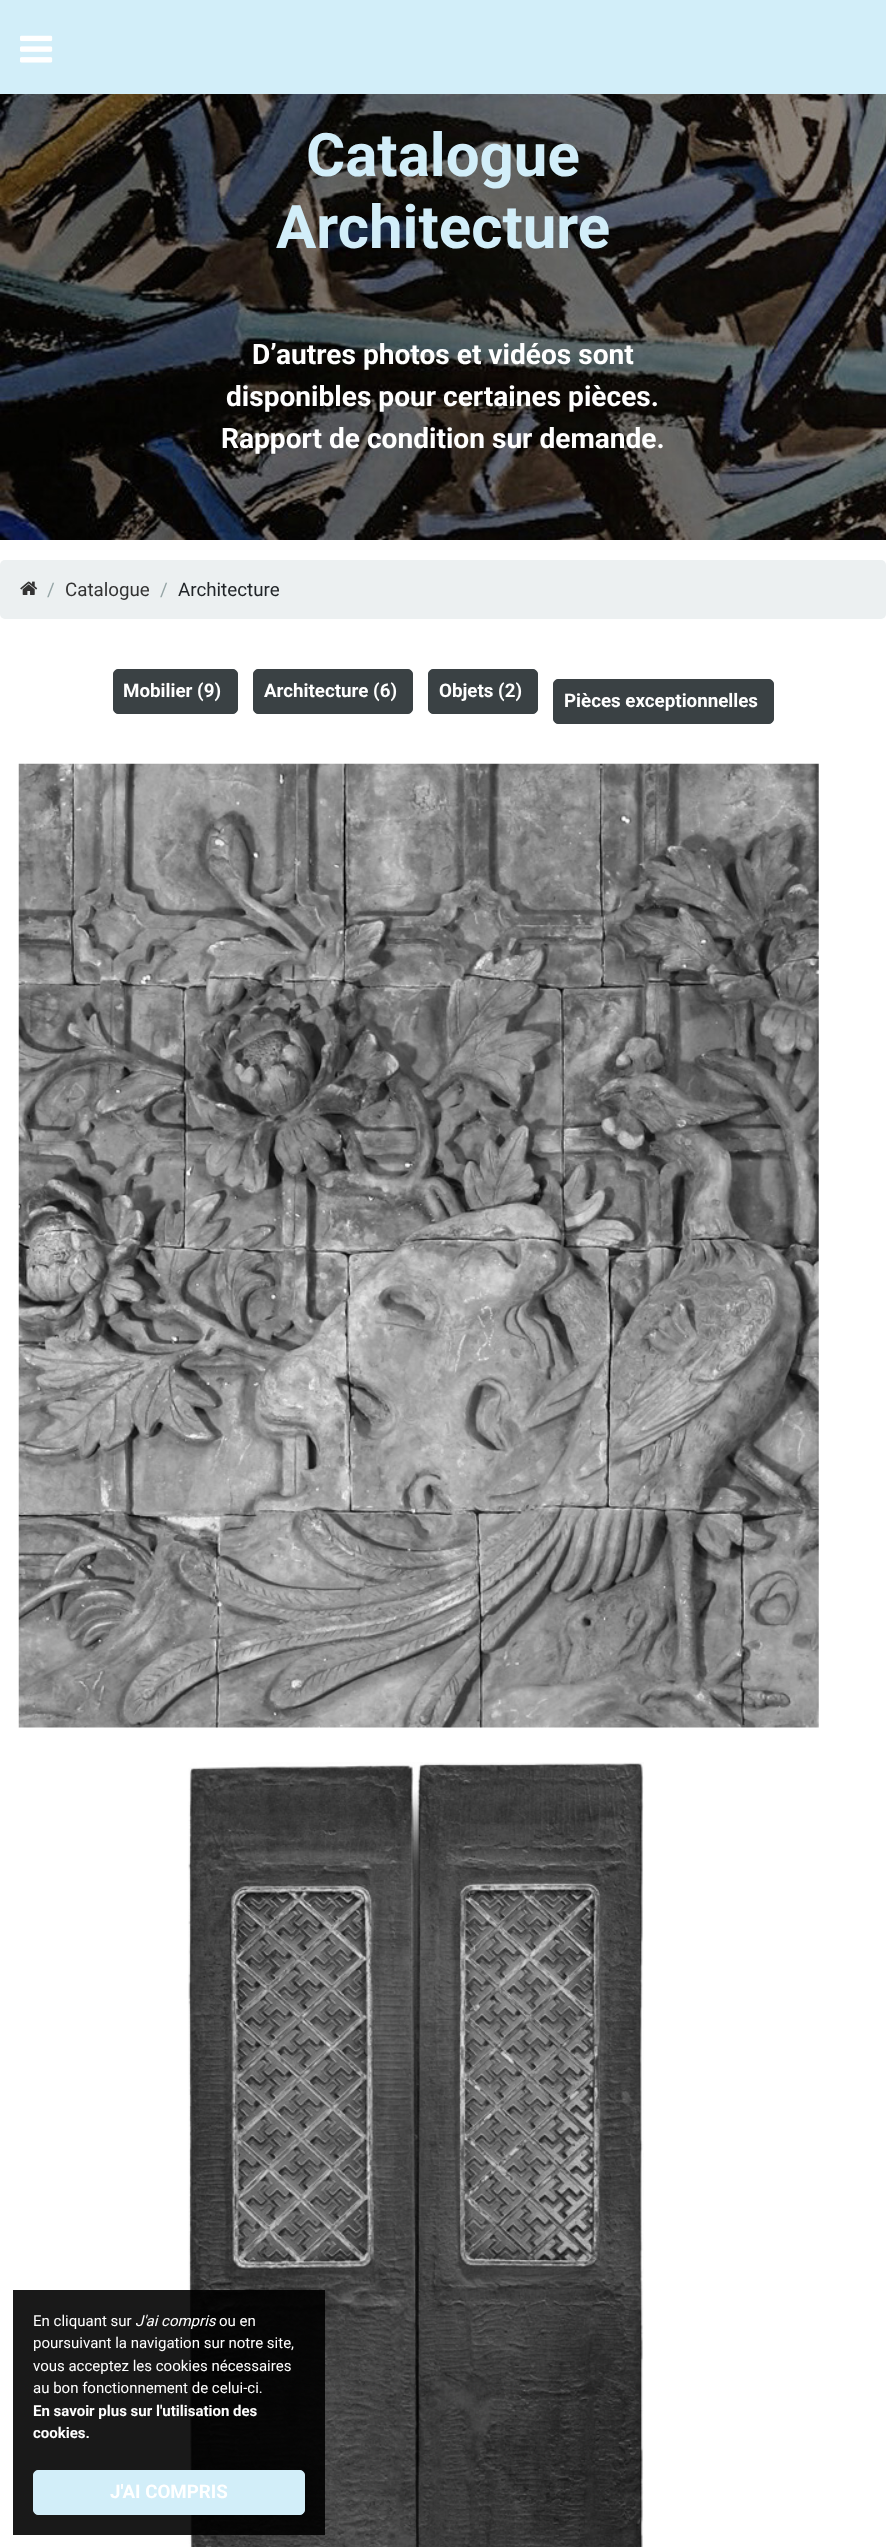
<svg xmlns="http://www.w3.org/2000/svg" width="886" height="2547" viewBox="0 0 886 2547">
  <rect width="100%" height="100%" fill="#ffffff"/>
  <rect x="0" y="0" width="886" height="94" fill="#d2eef9"/>
  <image x="20" y="35" width="33" height="28" href="img1.png"/>
  <image x="0" y="94" width="886" height="446" href="img2.png"/>
  <text x="306" y="176" font-family="Roboto" font-size="60" font-weight="bold" fill="#d2eef9">Catalogue</text>
  <text x="276" y="248" font-family="Roboto" font-size="60" font-weight="bold" fill="#d2eef9">Architecture</text>
  <text x="252" y="364" font-family="Roboto" font-size="28.1" font-weight="bold" fill="#ffffff">D’autres photos et vidéos sont</text>
  <text x="226" y="406" font-family="Roboto" font-size="28.1" font-weight="bold" fill="#ffffff">disponibles pour certaines pièces.</text>
  <text x="221" y="448" font-family="Roboto" font-size="28.1" font-weight="bold" fill="#ffffff">Rapport de condition sur demande.</text>
  <rect x="0" y="560" width="886" height="59" rx="5" fill="#ecf0f1"/>
  <image x="20" y="581" width="18" height="14" href="img3.png"/>
  <text x="47" y="596" font-family="Roboto" font-size="18.75" fill="#95a5a6">/</text>
  <text x="65" y="596" font-family="Roboto" font-size="18.75" fill="#333333">Catalogue</text>
  <text x="160" y="596" font-family="Roboto" font-size="18.75" fill="#95a5a6">/</text>
  <text x="178" y="596" font-family="Roboto" font-size="18.75" fill="#212529">Architecture</text>
  <rect x="113.5" y="669.5" width="124" height="44" rx="4.5" fill="#3a4144" stroke="#3a4144"/>
  <text x="123" y="697" font-family="Roboto" font-size="18.75" font-weight="bold" fill="#ffffff">Mobilier (9)</text>
  <rect x="253.5" y="669.5" width="159" height="44" rx="4.5" fill="#3a4144" stroke="#3a4144"/>
  <text x="264" y="697" font-family="Roboto" font-size="18.75" font-weight="bold" fill="#ffffff">Architecture (6)</text>
  <rect x="428.5" y="669.5" width="109" height="44" rx="4.5" fill="#3a4144" stroke="#3a4144"/>
  <text x="439" y="697" font-family="Roboto" font-size="18.75" font-weight="bold" fill="#ffffff">Objets (2)</text>
  <rect x="553.5" y="679.5" width="220" height="44" rx="4.5" fill="#3a4144" stroke="#3a4144"/>
  <text x="564" y="707" font-family="Roboto" font-size="18.75" font-weight="bold" fill="#ffffff">Pièces exceptionnelles</text>
  <image x="18" y="763" width="801" height="965" href="img4.png"/>
  <image x="188" y="1762" width="456" height="785" href="img5.png"/>
  <rect x="13" y="2290" width="312" height="245" fill="#000000" fill-opacity="0.9"/>
  <text x="33" y="2326" font-family="Roboto" font-size="15" fill="#ffffff">En cliquant sur</text>
  <text x="135" y="2326" font-family="Roboto" font-size="15" font-style="italic" fill="#ffffff">J'ai compris</text>
  <text x="219" y="2326" font-family="Roboto" font-size="15" fill="#ffffff">ou en</text>
  <text x="33" y="2348" font-family="Roboto" font-size="15" fill="#ffffff">poursuivant la navigation sur notre site,</text>
  <text x="33" y="2371" font-family="Roboto" font-size="15" fill="#ffffff">vous acceptez les cookies nécessaires</text>
  <text x="33" y="2393" font-family="Roboto" font-size="15" fill="#ffffff">au bon fonctionnement de celui-ci.</text>
  <text x="33" y="2416" font-family="Roboto" font-size="15" font-weight="bold" fill="#ffffff">En savoir plus sur l'utilisation des</text>
  <text x="33" y="2438" font-family="Roboto" font-size="15" font-weight="bold" fill="#ffffff">cookies.</text>
  <rect x="33.5" y="2470.5" width="271" height="44" rx="4.5" fill="#d2eef9" stroke="#d2eef9"/>
  <text x="110" y="2498" font-family="Roboto" font-size="18.75" font-weight="bold" fill="#ffffff">J'AI COMPRIS</text>
</svg>
